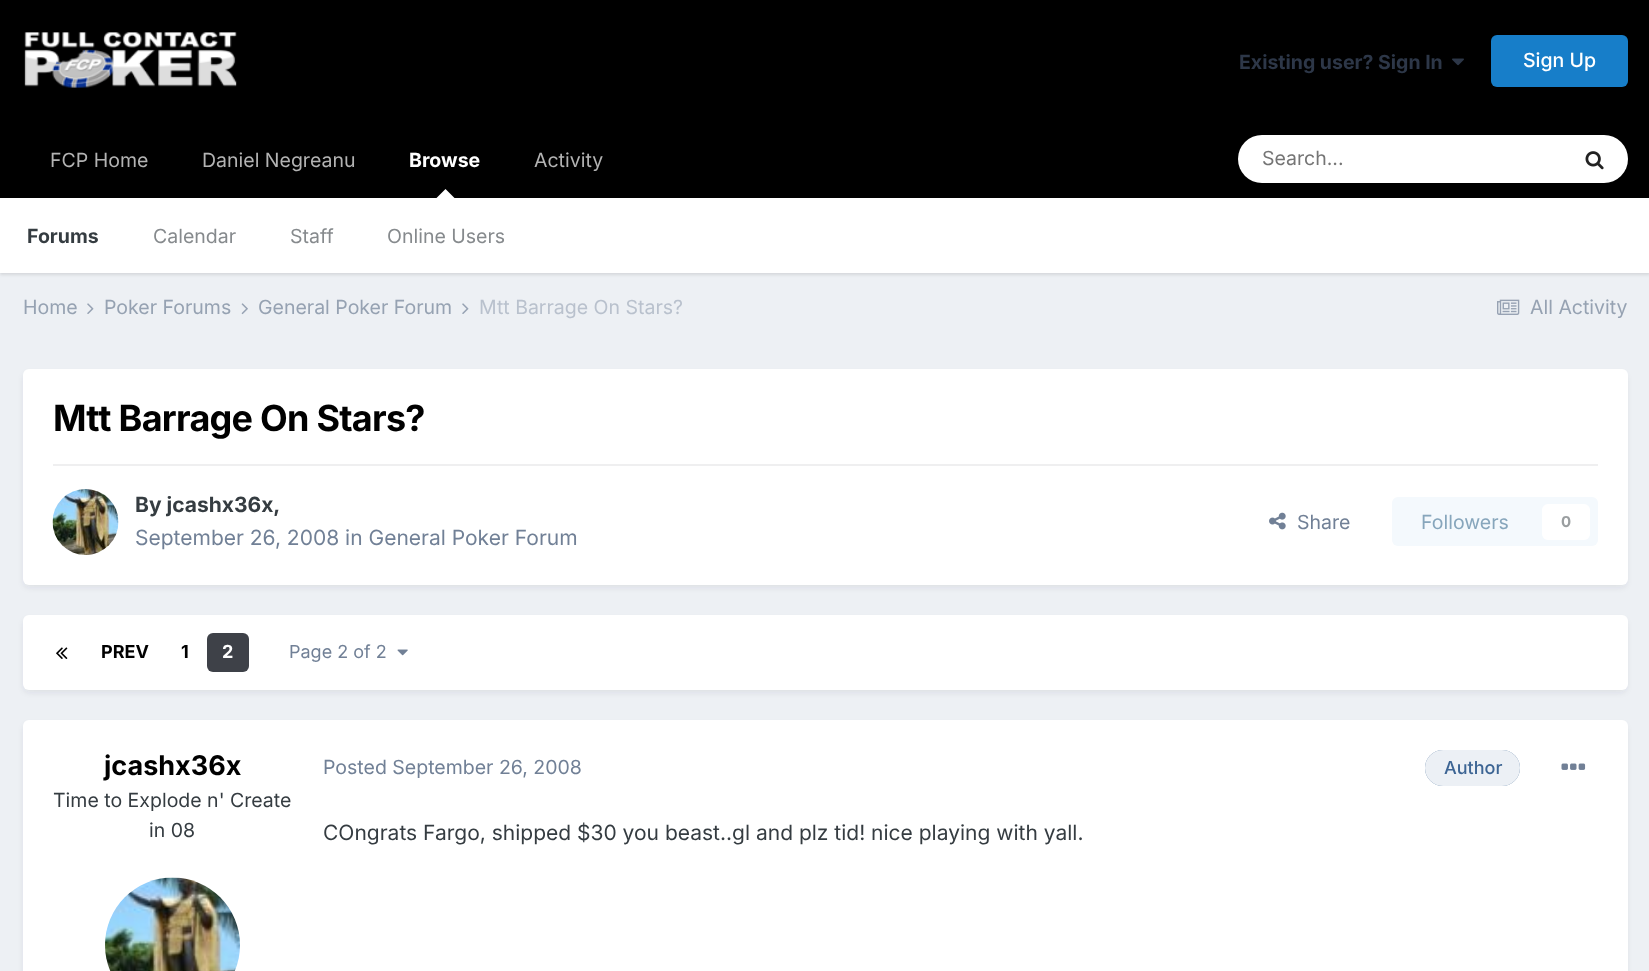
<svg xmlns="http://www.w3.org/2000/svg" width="1649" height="971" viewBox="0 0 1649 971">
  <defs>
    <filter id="blur1" x="-50%" y="-200%" width="200%" height="500%"><feGaussianBlur stdDeviation="1.5"/></filter>
    <filter id="blur2" x="-50%" y="-200%" width="200%" height="500%"><feGaussianBlur stdDeviation="3"/></filter>
  </defs>
  <rect width="100%" height="100%" fill="#edf0f4"/>
  <rect x="0" y="0" width="1649" height="198" fill="#000000"/>
  <image x="24" y="32" width="213" height="56" href="img1.png"/>
  <text x="1239" y="69" font-family="Inter" font-size="19.5" font-weight="bold" fill="#2d3748">Existing user? Sign In</text>
  <image x="1452" y="58" width="12" height="8" href="img2.png"/>
  <rect x="1491" y="35" width="137" height="52" rx="6" fill="#177ec9"/>
  <text x="1523" y="67" font-family="Inter" font-size="19.5" font-weight="500" fill="#ffffff">Sign Up</text>
  <text x="409" y="167" font-family="Inter" font-size="19.5" font-weight="bold" fill="#ffffff">Browse</text>
  <rect x="0" y="200" width="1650" height="75" fill="#000000" fill-opacity="0.1" filter="url(#blur1)"/>
  <path d="M454.5 198H436.5L445.5 189Z" fill="#ffffff"/>
  <rect x="0" y="198" width="1649" height="75" fill="#ffffff"/>
  <text x="27" y="243" font-family="Inter" font-size="19.5" font-weight="bold" fill="#353c41">Forums</text>
  <text x="153" y="243" font-family="Inter" font-size="19.5" fill="#868a8d">Calendar</text>
  <text x="290" y="243" font-family="Inter" font-size="19.5" fill="#868a8d">Staff</text>
  <text x="387" y="243" font-family="Inter" font-size="19.5" fill="#868a8d">Online Users</text>
  <text x="50" y="167" font-family="Inter" font-size="19.5" fill="#b3b3b3">FCP Home</text>
  <text x="202" y="167" font-family="Inter" font-size="19.5" fill="#b3b3b3">Daniel Negreanu</text>
  <text x="534" y="167" font-family="Inter" font-size="19.5" fill="#b3b3b3">Activity</text>
  <rect x="1238" y="135" width="390" height="48" rx="24" fill="#ffffff"/>
  <text x="1262" y="165" font-family="Inter" font-size="19.5" fill="#757575">Search...</text>
  <image x="1585" y="151" width="19" height="19" href="img3.png"/>
  <text x="23" y="314" font-family="Inter" font-size="19.5" fill="#96a2b2">Home</text>
  <image x="87" y="303" width="7" height="11" href="img4.png"/>
  <text x="104" y="314" font-family="Inter" font-size="19.5" fill="#96a2b2">Poker Forums</text>
  <image x="241" y="303" width="7" height="12" href="img5.png"/>
  <text x="258" y="314" font-family="Inter" font-size="19.5" fill="#96a2b2">General Poker Forum</text>
  <image x="462" y="303" width="7" height="11" href="img4.png"/>
  <text x="479" y="314" font-family="Inter" font-size="19.5" fill="#b9c1cd">Mtt Barrage On Stars?</text>
  <image x="1497" y="299" width="23" height="16" href="img6.png"/>
  <text x="1530" y="314" font-family="Inter" font-size="19.5" fill="#96a2b2">All Activity</text>
  <rect x="24" y="374" width="1602" height="213" rx="5" fill="#2d3748" fill-opacity="0.1" filter="url(#blur2)"/>
  <rect x="23" y="369" width="1605" height="216" rx="6" fill="#ffffff"/>
  <text x="53" y="431" font-family="Inter" font-size="36" font-weight="bold" letter-spacing="-0.75" fill="#000000">Mtt Barrage On Stars?</text>
  <rect x="53" y="464" width="1545" height="2" fill="#efeff0"/>
  <image x="52" y="489" width="67" height="66" href="img7.png"/>
  <text x="135" y="512" font-family="Inter" font-size="21" font-weight="bold" fill="#353c41">By jcashx36x,</text>
  <text x="135" y="545" font-family="Inter" font-size="21" fill="#718096">September 26, 2008 in General Poker Forum</text>
  <image x="1269" y="512" width="17" height="18" href="img8.png"/>
  <text x="1297" y="529" font-family="Inter" font-size="19.5" fill="#718096">Share</text>
  <rect x="1392" y="497" width="206" height="49" rx="6" fill="#f4f9fd"/>
  <text x="1421" y="529" font-family="Inter" font-size="19.5" fill="#87a6bc">Followers</text>
  <rect x="1542" y="504" width="48" height="36" rx="6" fill="#ffffff"/>
  <text x="1561" y="527" font-family="Inter" font-size="15" font-weight="bold" fill="#9a9ea0">0</text>
  <rect x="24" y="620" width="1602" height="72" rx="5" fill="#2d3748" fill-opacity="0.1" filter="url(#blur2)"/>
  <rect x="23" y="615" width="1605" height="75" rx="6" fill="#ffffff"/>
  <image x="56" y="647" width="12" height="12" href="img9.png"/>
  <text x="101" y="658" font-family="Inter" font-size="18" font-weight="bold" fill="#000000">PREV</text>
  <text x="181" y="658" font-family="Inter" font-size="18" font-weight="bold" fill="#000000">1</text>
  <rect x="207" y="633" width="42" height="39" rx="6" fill="#3e4148"/>
  <text x="222" y="658" font-family="Inter" font-size="18" font-weight="bold" fill="#ffffff">2</text>
  <text x="289" y="658" font-family="Inter" font-size="18" fill="#718096">Page 2 of 2</text>
  <image x="397" y="649" width="11" height="7" href="img10.png"/>
  <rect x="24" y="725" width="1602" height="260" rx="5" fill="#2d3748" fill-opacity="0.1" filter="url(#blur2)"/>
  <rect x="23" y="720" width="1605" height="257" rx="6" fill="#ffffff"/>
  <text x="104" y="775" font-family="Inter" font-size="27" font-weight="bold" fill="#000000">jcashx36x</text>
  <text x="53" y="807" font-family="Inter" font-size="19.5" fill="#353c41">Time to Explode n' Create</text>
  <text x="149" y="837" font-family="Inter" font-size="19.5" fill="#353c41">in 08</text>
  <image x="105" y="877" width="135" height="94" href="img11.png"/>
  <text x="323" y="774" font-family="Inter" font-size="19.5" fill="#718096">Posted September 26, 2008</text>
  <rect x="1425" y="750" width="95" height="36" rx="18" fill="#3d6594"/>
  <rect x="1425" y="750" width="95" height="36" rx="18" fill="#ffffff" fill-opacity="0.9"/>
  <text x="1444" y="774" font-family="Inter" font-size="18" font-weight="500" fill="#3d6594">Author</text>
  <image x="1561" y="763" width="25" height="7" href="img12.png"/>
  <text x="323" y="840" font-family="Inter" font-size="21" fill="#353c41">COngrats Fargo, shipped $30 you beast..gl and plz tid! nice playing with yall.</text>
</svg>
